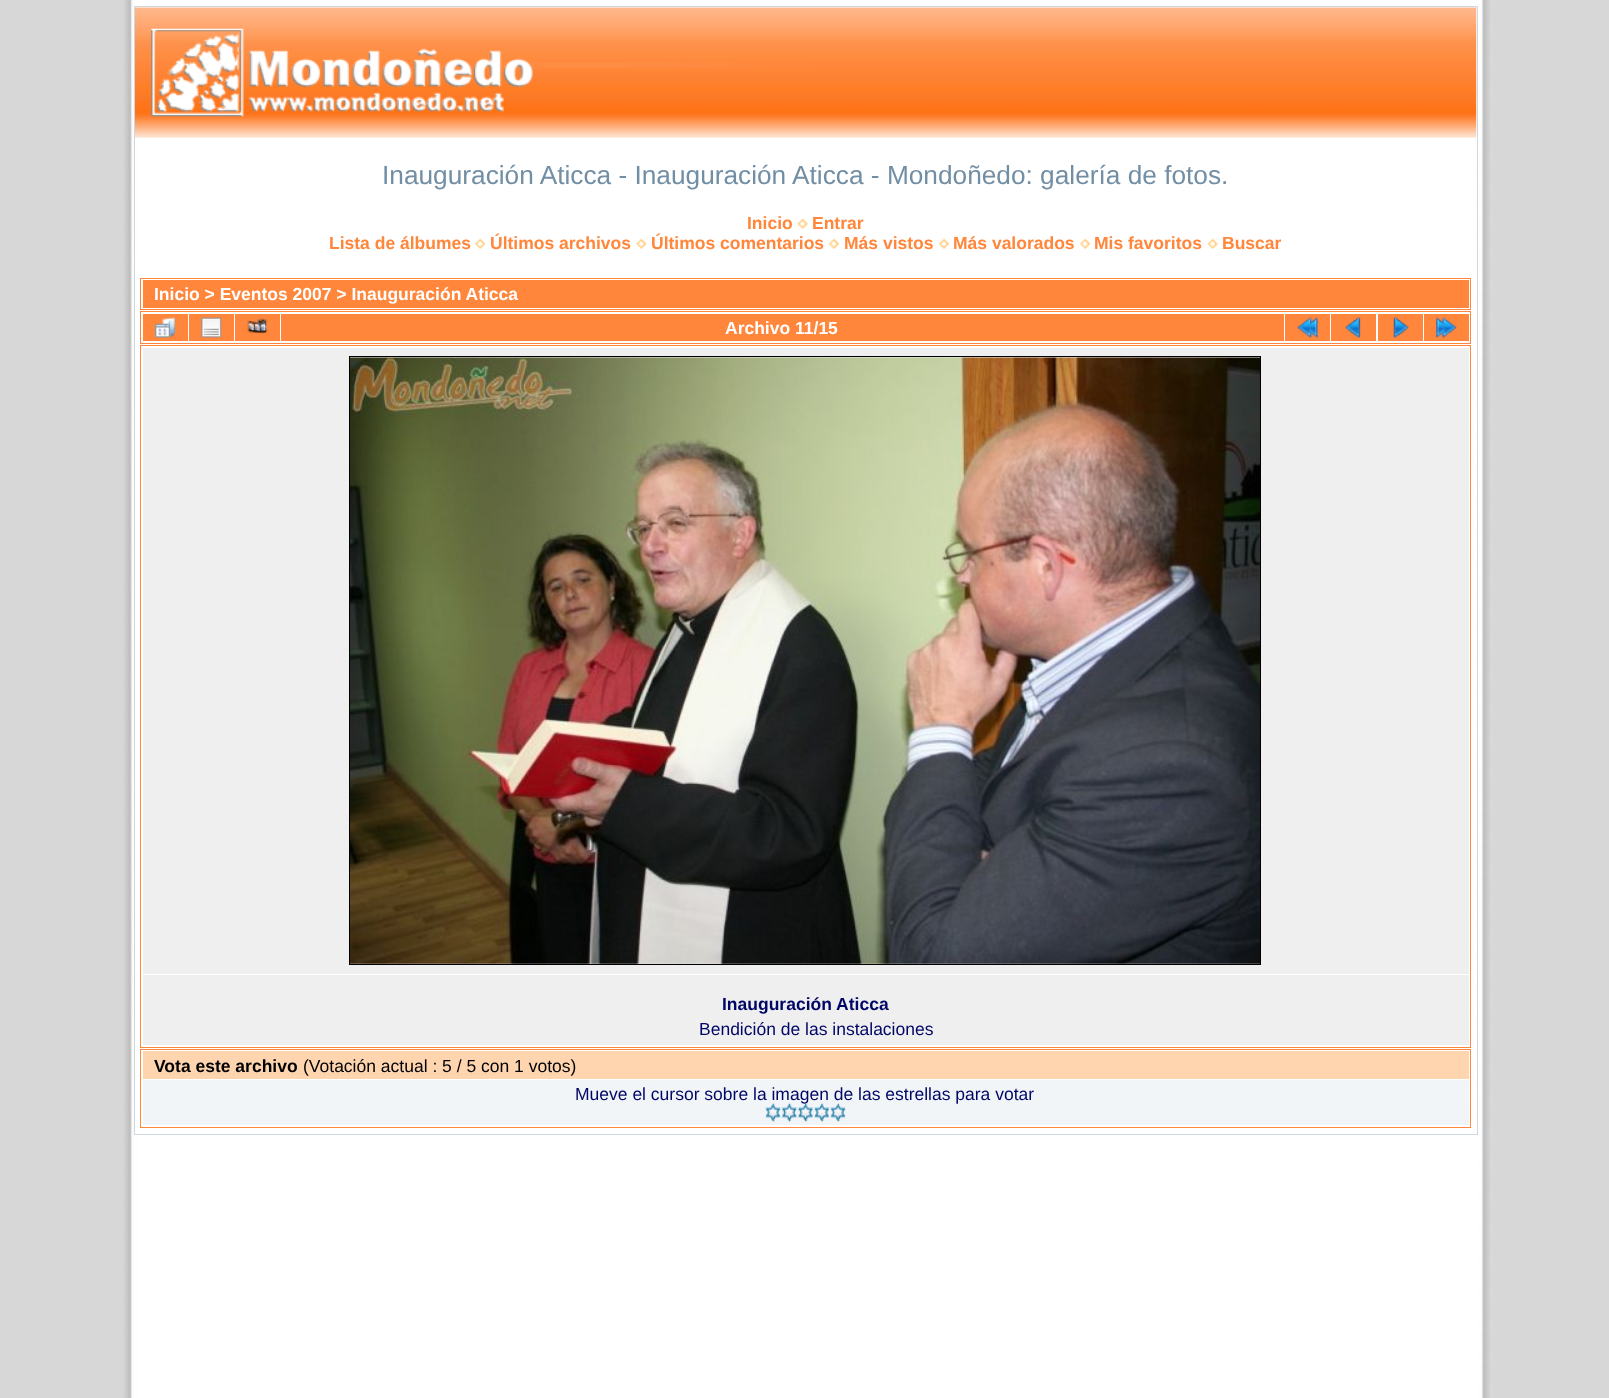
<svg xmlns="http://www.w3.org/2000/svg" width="1609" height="1398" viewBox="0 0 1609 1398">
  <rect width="100%" height="100%" fill="#ffffff"/>
  <image x="0" y="0" width="1609" height="1398" href="img1.png"/>
  <rect x="134.5" y="6.5" width="1343" height="1128" fill="none" stroke="#ccd7e0"/>
  <image x="135" y="7" width="1342" height="131" href="img2.png"/>
  <text x="382" y="184" font-family="Liberation Sans" font-size="26.25" fill="#718ea5">Inauguración Aticca - Inauguración Aticca - Mondoñedo: galería de fotos.</text>
  <text x="747" y="229" font-family="Liberation Sans" font-size="17.5" font-weight="bold" fill="#ff863a">Inicio</text>
  <image x="797" y="218" width="11" height="11" href="img3.png"/>
  <text x="812" y="229" font-family="Liberation Sans" font-size="17.5" font-weight="bold" fill="#ff863a">Entrar</text>
  <text x="329" y="249" font-family="Liberation Sans" font-size="17.5" font-weight="bold" fill="#ff863a">Lista de álbumes</text>
  <image x="475" y="238" width="10" height="11" href="img4.png"/>
  <text x="490" y="249" font-family="Liberation Sans" font-size="17.5" font-weight="bold" fill="#ff863a">Últimos archivos</text>
  <image x="636" y="238" width="11" height="11" href="img5.png"/>
  <text x="651" y="249" font-family="Liberation Sans" font-size="17.5" font-weight="bold" fill="#ff863a">Últimos comentarios</text>
  <image x="828" y="238" width="11" height="11" href="img6.png"/>
  <text x="844" y="249" font-family="Liberation Sans" font-size="17.5" font-weight="bold" fill="#ff863a">Más vistos</text>
  <image x="938" y="238" width="11" height="11" href="img6.png"/>
  <text x="953" y="249" font-family="Liberation Sans" font-size="17.5" font-weight="bold" fill="#ff863a">Más valorados</text>
  <image x="1080" y="238" width="10" height="11" href="img7.png"/>
  <text x="1094" y="249" font-family="Liberation Sans" font-size="17.5" font-weight="bold" fill="#ff863a">Mis favoritos</text>
  <image x="1207" y="238" width="11" height="11" href="img3.png"/>
  <text x="1222" y="249" font-family="Liberation Sans" font-size="17.5" font-weight="bold" fill="#ff863a">Buscar</text>
  <rect x="140.5" y="278.5" width="1330" height="31" fill="none" stroke="#ff863a"/>
  <rect x="143" y="280" width="1326" height="28" fill="#ff863a"/>
  <text x="154" y="300" font-family="Liberation Sans" font-size="17.5" font-weight="bold" fill="#ffffff">Inicio &gt; Eventos 2007 &gt; Inauguración Aticca</text>
  <rect x="140.5" y="311.5" width="1330" height="32" fill="none" stroke="#ff863a"/>
  <rect x="143" y="314" width="45" height="27" fill="#ff863a"/>
  <image x="155" y="317" width="20" height="21" href="img8.png"/>
  <rect x="189" y="314" width="45" height="27" fill="#ff863a"/>
  <image x="201" y="317" width="21" height="21" href="img9.png"/>
  <rect x="235" y="314" width="45" height="27" fill="#ff863a"/>
  <image x="247" y="318" width="21" height="16" href="img10.png"/>
  <rect x="281" y="314" width="1003" height="27" fill="#ff863a"/>
  <text x="725" y="334" font-family="Liberation Sans" font-size="17.5" font-weight="bold" fill="#ffffff">Archivo 11/15</text>
  <rect x="1285" y="314" width="45" height="27" fill="#ff863a"/>
  <image x="1297" y="317" width="21" height="21" href="img11.png"/>
  <rect x="1331" y="314" width="45" height="27" fill="#ff863a"/>
  <image x="1345" y="317" width="16" height="21" href="img12.png"/>
  <rect x="1378" y="314" width="45" height="27" fill="#ff863a"/>
  <image x="1393" y="317" width="16" height="21" href="img13.png"/>
  <rect x="1424" y="314" width="45" height="27" fill="#ff863a"/>
  <image x="1436" y="317" width="21" height="21" href="img14.png"/>
  <rect x="140.5" y="345.5" width="1330" height="702" fill="none" stroke="#ff863a"/>
  <rect x="143" y="348" width="1326" height="626" fill="#efefef"/>
  <rect x="349.5" y="356.5" width="911" height="608" fill="none" stroke="#000000"/>
  <image x="350" y="357" width="910" height="607" href="img15.png"/>
  <rect x="143" y="975" width="1326" height="70" fill="#efefef"/>
  <text x="722" y="1010" font-family="Liberation Sans" font-size="17.5" font-weight="bold" fill="#000666">Inauguración Aticca</text>
  <text x="699" y="1035" font-family="Liberation Sans" font-size="17.5" fill="#000666">Bendición de las instalaciones</text>
  <rect x="140.5" y="1049.5" width="1330" height="78" fill="none" stroke="#ff863a"/>
  <rect x="143" y="1051" width="1326" height="28" fill="#ffd5b0"/>
  <text x="154" y="1072" font-family="Liberation Sans" font-size="17.5" font-weight="bold" fill="#000000">Vota este archivo</text>
  <text x="303" y="1072" font-family="Liberation Sans" font-size="17.5" fill="#000000">(Votación actual : 5 / 5 con 1 votos)</text>
  <rect x="143" y="1080" width="1326" height="45" fill="#f2f5f7"/>
  <text x="575" y="1100" font-family="Liberation Sans" font-size="17.5" fill="#000666">Mueve el cursor sobre la imagen de las estrellas para votar</text>
  <image x="765" y="1103" width="16" height="19" href="img16.png"/>
  <image x="781" y="1103" width="17" height="19" href="img17.png"/>
  <image x="797" y="1103" width="17" height="19" href="img18.png"/>
  <image x="813" y="1103" width="17" height="19" href="img19.png"/>
  <image x="830" y="1103" width="16" height="19" href="img20.png"/>
</svg>
